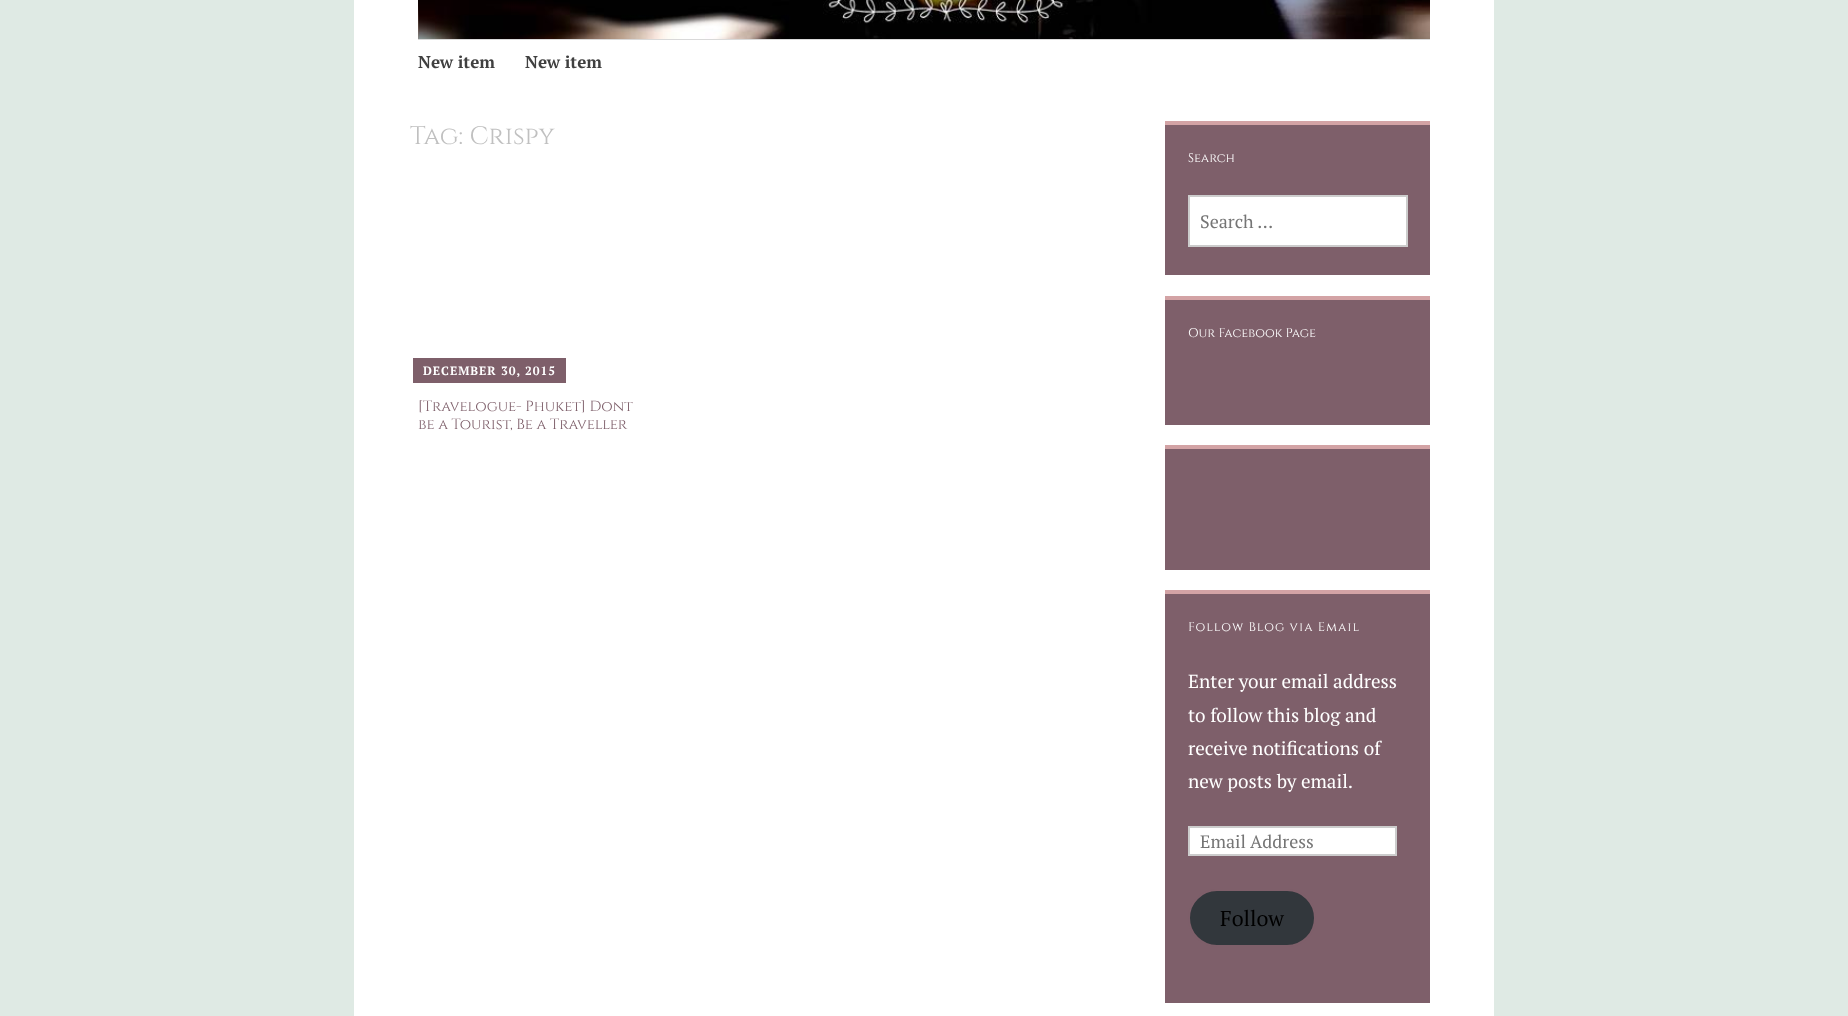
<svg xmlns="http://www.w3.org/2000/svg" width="1848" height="1016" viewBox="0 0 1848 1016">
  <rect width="100%" height="100%" fill="#dfeae4"/>
  <rect x="354" y="0" width="1140" height="1016" fill="#ffffff"/>
  <image x="418" y="0" width="1012" height="39" href="img1.png"/>
  <rect x="418" y="39" width="1012" height="1" fill="#d9d9d9"/>
  <text x="418" y="68" font-family="PT Serif" font-size="17" font-weight="bold" fill="#404040">New item</text>
  <text x="525" y="68" font-family="PT Serif" font-size="17" font-weight="bold" fill="#404040">New item</text>
  <text x="410" y="144" font-family="Cinzel" font-size="25.25" fill="#c0c0c0">Tag: Crispy</text>
  <rect x="413" y="358" width="153" height="25" fill="#7e5f6a"/>
  <text x="423" y="375" font-family="PT Serif" font-size="12" font-weight="bold" letter-spacing="1" fill="#ffffff">DECEMBER 30, 2015</text>
  <text x="418" y="411" font-family="Cinzel" font-size="14.75" fill="#7e5f6a">[Travelogue- Phuket] Dont</text>
  <text x="418" y="429" font-family="Cinzel" font-size="14.75" fill="#7e5f6a">be a Tourist, Be a Traveller</text>
  <rect x="1165" y="125" width="265" height="150" fill="#7e5f6a"/>
  <rect x="1165" y="121" width="265" height="4" fill="#d3a3a5"/>
  <text x="1188" y="162" font-family="Cinzel" font-size="12.6" fill="#ffffff">Search</text>
  <rect x="1189" y="196" width="218" height="50" fill="#ffffff" stroke="#cccccc" stroke-width="2"/>
  <text x="1200" y="228" font-family="PT Serif" font-size="18" fill="#757575">Search …</text>
  <rect x="1165" y="300" width="265" height="125" fill="#7e5f6a"/>
  <rect x="1165" y="296" width="265" height="4" fill="#d3a3a5"/>
  <text x="1188" y="337" font-family="Cinzel" font-size="12.6" fill="#ffffff">Our Facebook Page</text>
  <rect x="1165" y="449" width="265" height="121" fill="#7e5f6a"/>
  <rect x="1165" y="445" width="265" height="4" fill="#d3a3a5"/>
  <rect x="1165" y="594" width="265" height="409" fill="#7e5f6a"/>
  <rect x="1165" y="590" width="265" height="4" fill="#d3a3a5"/>
  <text x="1188" y="631" font-family="Cinzel" font-size="12.6" letter-spacing="1" fill="#ffffff">Follow Blog via Email</text>
  <text x="1188" y="688" font-family="PT Serif" font-size="19" fill="#ffffff">Enter your email address</text>
  <text x="1188" y="722" font-family="PT Serif" font-size="19" fill="#ffffff">to follow this blog and</text>
  <text x="1188" y="755" font-family="PT Serif" font-size="19" fill="#ffffff">receive notifications of</text>
  <text x="1188" y="788" font-family="PT Serif" font-size="19" fill="#ffffff">new posts by email.</text>
  <rect x="1189" y="827" width="207" height="28" fill="#ffffff" stroke="#cccccc" stroke-width="2"/>
  <text x="1200" y="848" font-family="PT Serif" font-size="18" fill="#757575">Email Address</text>
  <rect x="1189" y="890" width="126" height="56" rx="28" fill="#32373c" stroke="#7e5f6a" stroke-width="2"/>
  <text x="1220" y="926" font-family="PT Serif" font-size="21.5" fill="#000000">Follow</text>
</svg>
